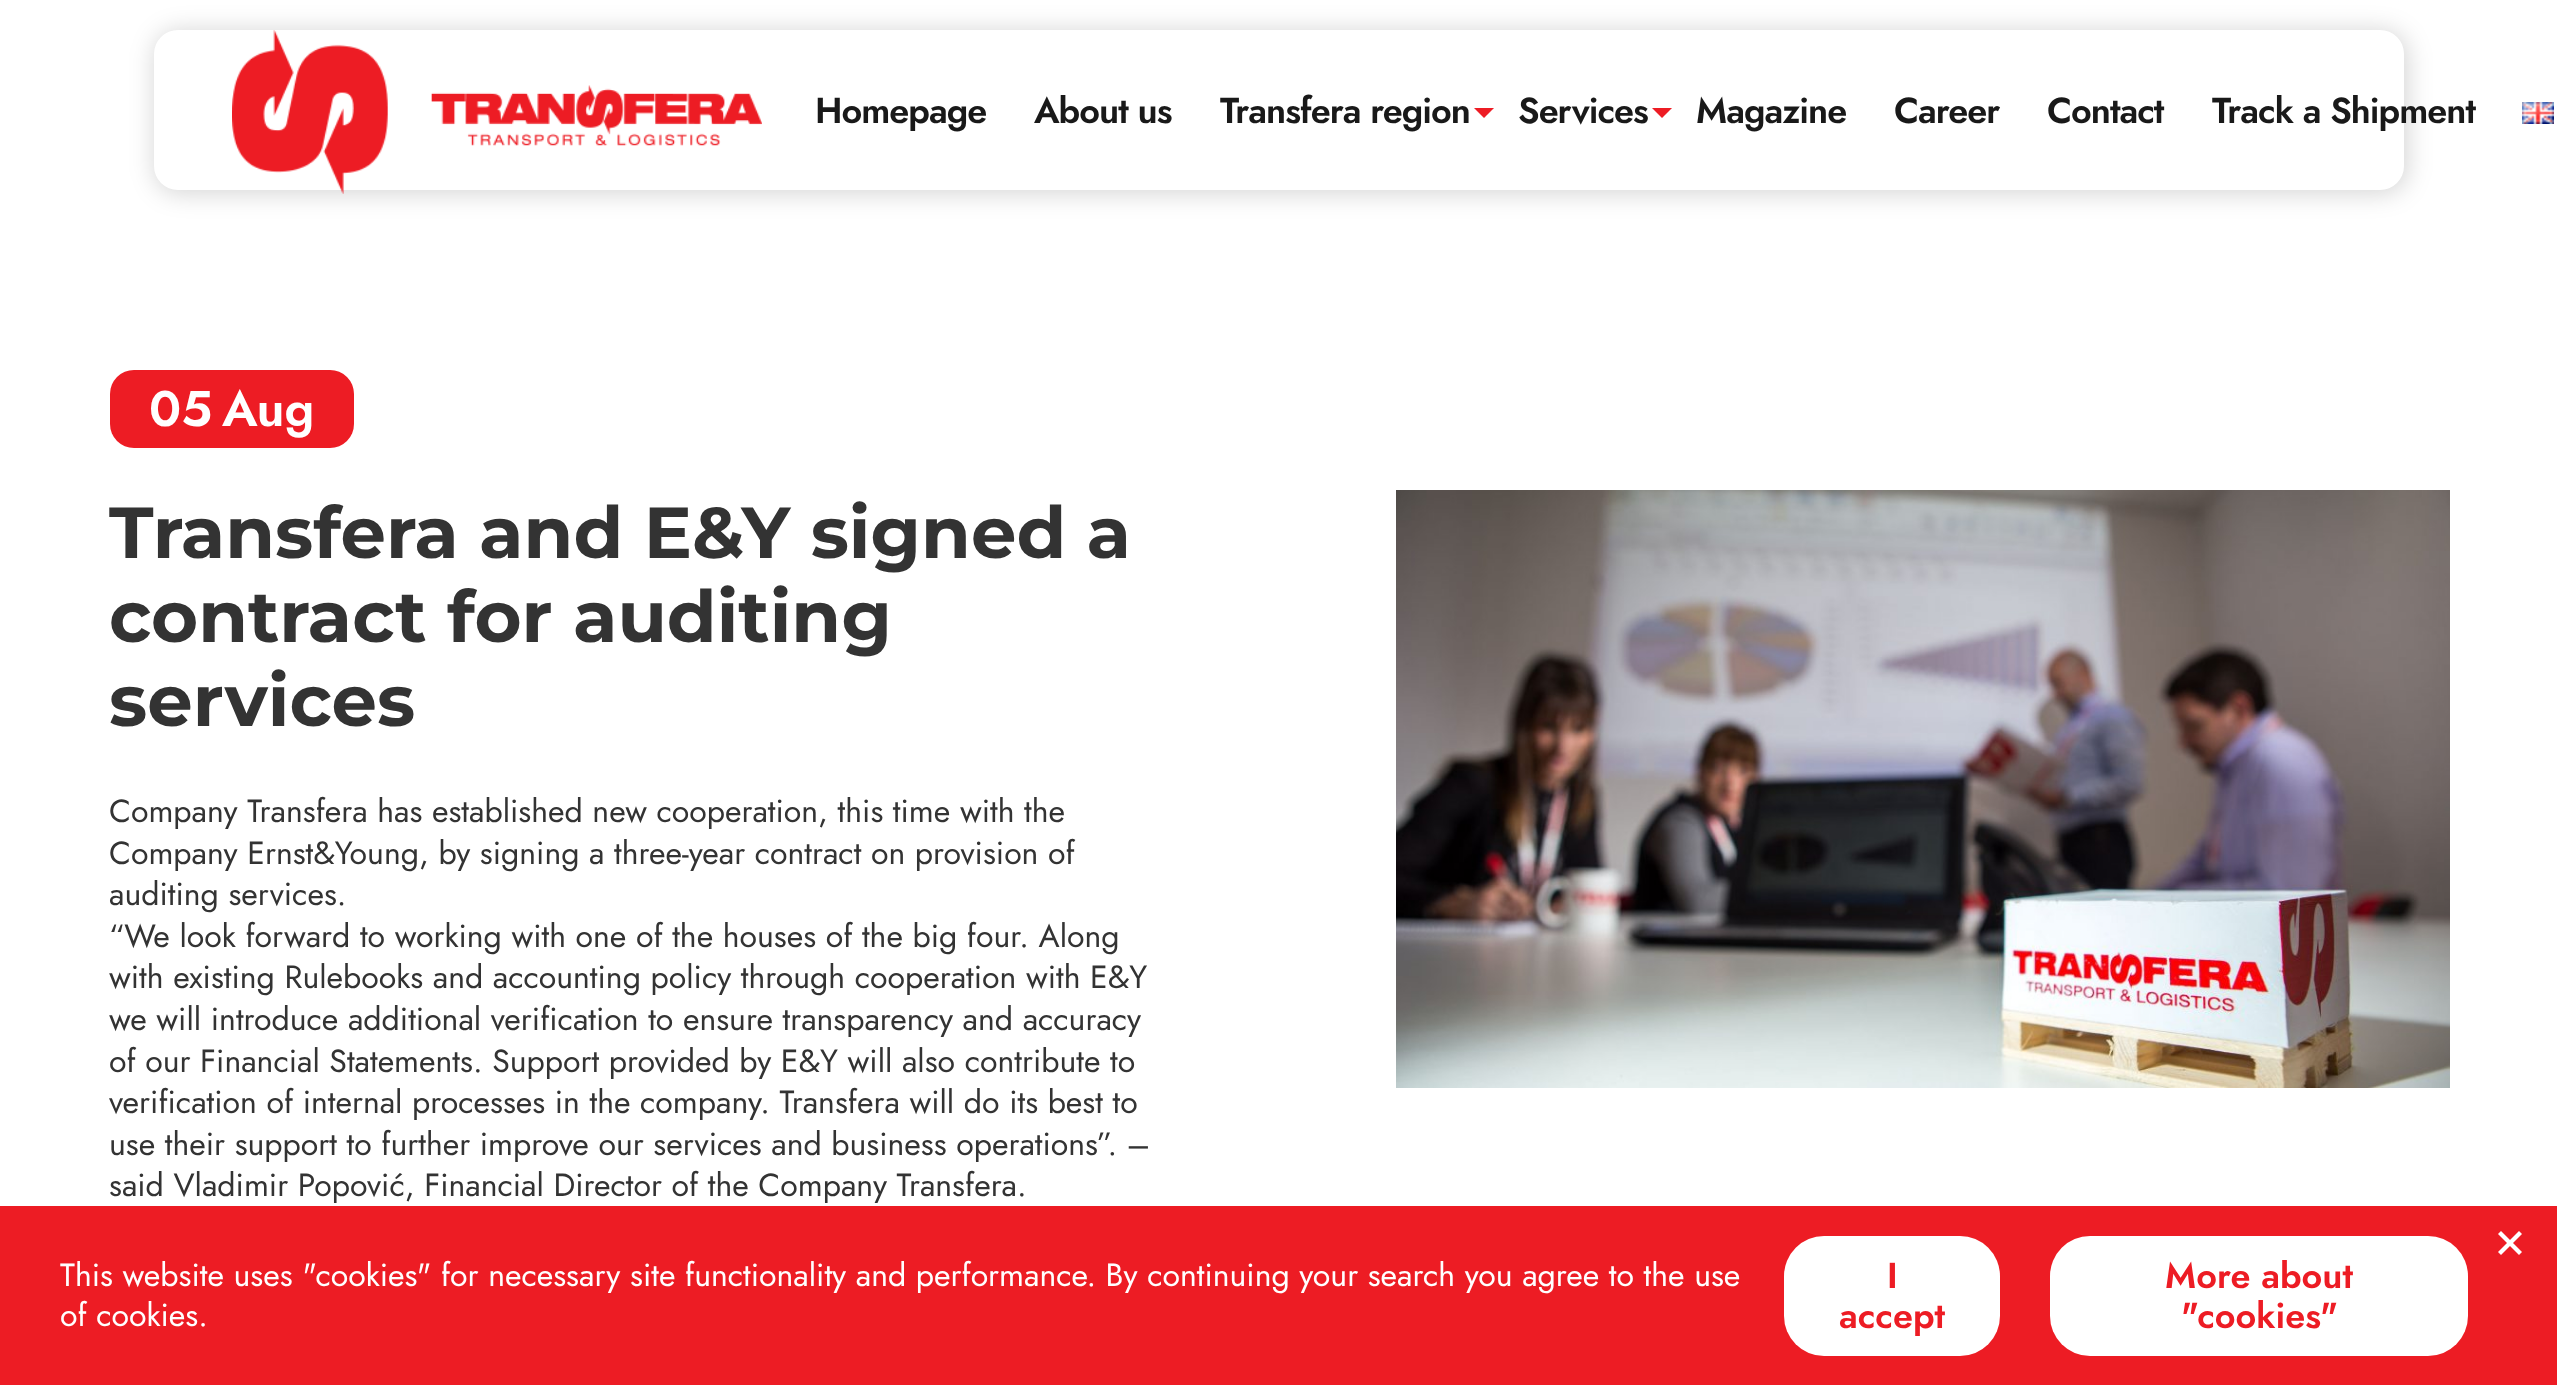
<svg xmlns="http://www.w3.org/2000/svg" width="2557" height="1385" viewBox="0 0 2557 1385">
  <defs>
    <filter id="blur1" x="-50%" y="-200%" width="200%" height="500%"><feGaussianBlur stdDeviation="12"/></filter>
  </defs>
  <rect width="100%" height="100%" fill="#ffffff"/>
  <rect x="154" y="30" width="2254" height="164" rx="26" fill="#000000" fill-opacity="0.16" filter="url(#blur1)"/>
  <rect x="154" y="30" width="2250" height="160" rx="24" fill="#ffffff"/>
  <image x="232" y="30" width="530" height="164" href="img1.png"/>
  <text x="815" y="123" font-family="Jost" font-size="36" font-weight="600" letter-spacing="-1" fill="#191919">Homepage</text>
  <text x="1034" y="123" font-family="Jost" font-size="36" font-weight="600" letter-spacing="-1" fill="#191919">About us</text>
  <text x="1220" y="123" font-family="Jost" font-size="36" font-weight="600" letter-spacing="-1" fill="#191919">Transfera region</text>
  <image x="1474" y="108" width="20" height="10" href="img2.png"/>
  <text x="1518" y="123" font-family="Jost" font-size="36" font-weight="600" letter-spacing="-1" fill="#191919">Services</text>
  <image x="1652" y="108" width="20" height="10" href="img2.png"/>
  <text x="1696" y="123" font-family="Jost" font-size="36" font-weight="600" letter-spacing="-1" fill="#191919">Magazine</text>
  <text x="1894" y="123" font-family="Jost" font-size="36" font-weight="600" letter-spacing="-1" fill="#191919">Career</text>
  <text x="2047" y="123" font-family="Jost" font-size="36" font-weight="600" letter-spacing="-1" fill="#191919">Contact</text>
  <text x="2212" y="123" font-family="Jost" font-size="36" font-weight="600" letter-spacing="-1" fill="#191919">Track a Shipment</text>
  <image x="2522" y="102" width="32" height="22" href="img3.png"/>
  <rect x="110" y="370" width="244" height="78" rx="24" fill="#ed1c24"/>
  <text x="149" y="426" font-family="Jost" font-size="50" font-weight="600" fill="#ffffff">05</text>
  <text x="222" y="426" font-family="Jost" font-size="50" font-weight="600" fill="#ffffff">Aug</text>
  <text x="109" y="558" font-family="Montserrat" font-size="72" font-weight="bold" fill="#333333">Transfera and E&amp;Y signed a</text>
  <text x="109" y="642" font-family="Montserrat" font-size="72" font-weight="bold" fill="#333333">contract for auditing</text>
  <text x="109" y="726" font-family="Montserrat" font-size="72" font-weight="bold" fill="#333333">services</text>
  <image x="1396" y="490" width="1054" height="598" href="img4.png"/>
  <text x="109" y="822" font-family="Jost" font-size="32" fill="#333333">Company Transfera has established new cooperation, this time with the</text>
  <text x="109" y="864" font-family="Jost" font-size="32" fill="#333333">Company Ernst&amp;Young, by signing a three-year contract on provision of</text>
  <text x="109" y="905" font-family="Jost" font-size="32" fill="#333333">auditing services.</text>
  <text x="109" y="947" font-family="Jost" font-size="32" fill="#333333">“We look forward to working with one of the houses of the big four. Along</text>
  <text x="109" y="988" font-family="Jost" font-size="32" fill="#333333">with existing Rulebooks and accounting policy through cooperation with E&amp;Y</text>
  <text x="109" y="1030" font-family="Jost" font-size="32" fill="#333333">we will introduce additional verification to ensure transparency and accuracy</text>
  <text x="109" y="1072" font-family="Jost" font-size="32" fill="#333333">of our Financial Statements. Support provided by E&amp;Y will also contribute to</text>
  <text x="109" y="1113" font-family="Jost" font-size="32" fill="#333333">verification of internal processes in the company. Transfera will do its best to</text>
  <text x="109" y="1155" font-family="Jost" font-size="32" fill="#333333">use their support to further improve our services and business operations”. –</text>
  <text x="109" y="1196" font-family="Jost" font-size="32" fill="#333333">said Vladimir Popović, Financial Director of the Company Transfera.</text>
  <rect x="0" y="1206" width="2557" height="179" fill="#ed1c24"/>
  <path d="M2519 1231L2522 1234L2501 1255L2498 1252Z" fill="#ffffff"/>
  <path d="M2498 1234L2501 1231L2522 1252L2519 1255Z" fill="#ffffff"/>
  <text x="60" y="1286" font-family="Jost" font-size="32" fill="#ffffff">This website uses "cookies" for necessary site functionality and performance. By continuing your search you agree to the use</text>
  <text x="60" y="1326" font-family="Jost" font-size="32" fill="#ffffff">of cookies.</text>
  <rect x="1784" y="1236" width="216" height="120" rx="40" fill="#ffffff"/>
  <text x="1887" y="1288" font-family="Jost" font-size="36" font-weight="600" fill="#ed1c24">I</text>
  <text x="1839" y="1328" font-family="Jost" font-size="36" font-weight="600" fill="#ed1c24">accept</text>
  <rect x="2050" y="1236" width="418" height="120" rx="40" fill="#ffffff"/>
  <text x="2165" y="1288" font-family="Jost" font-size="36" font-weight="600" fill="#ed1c24">More about</text>
  <text x="2181" y="1328" font-family="Jost" font-size="36" font-weight="600" fill="#ed1c24">"cookies"</text>
</svg>
